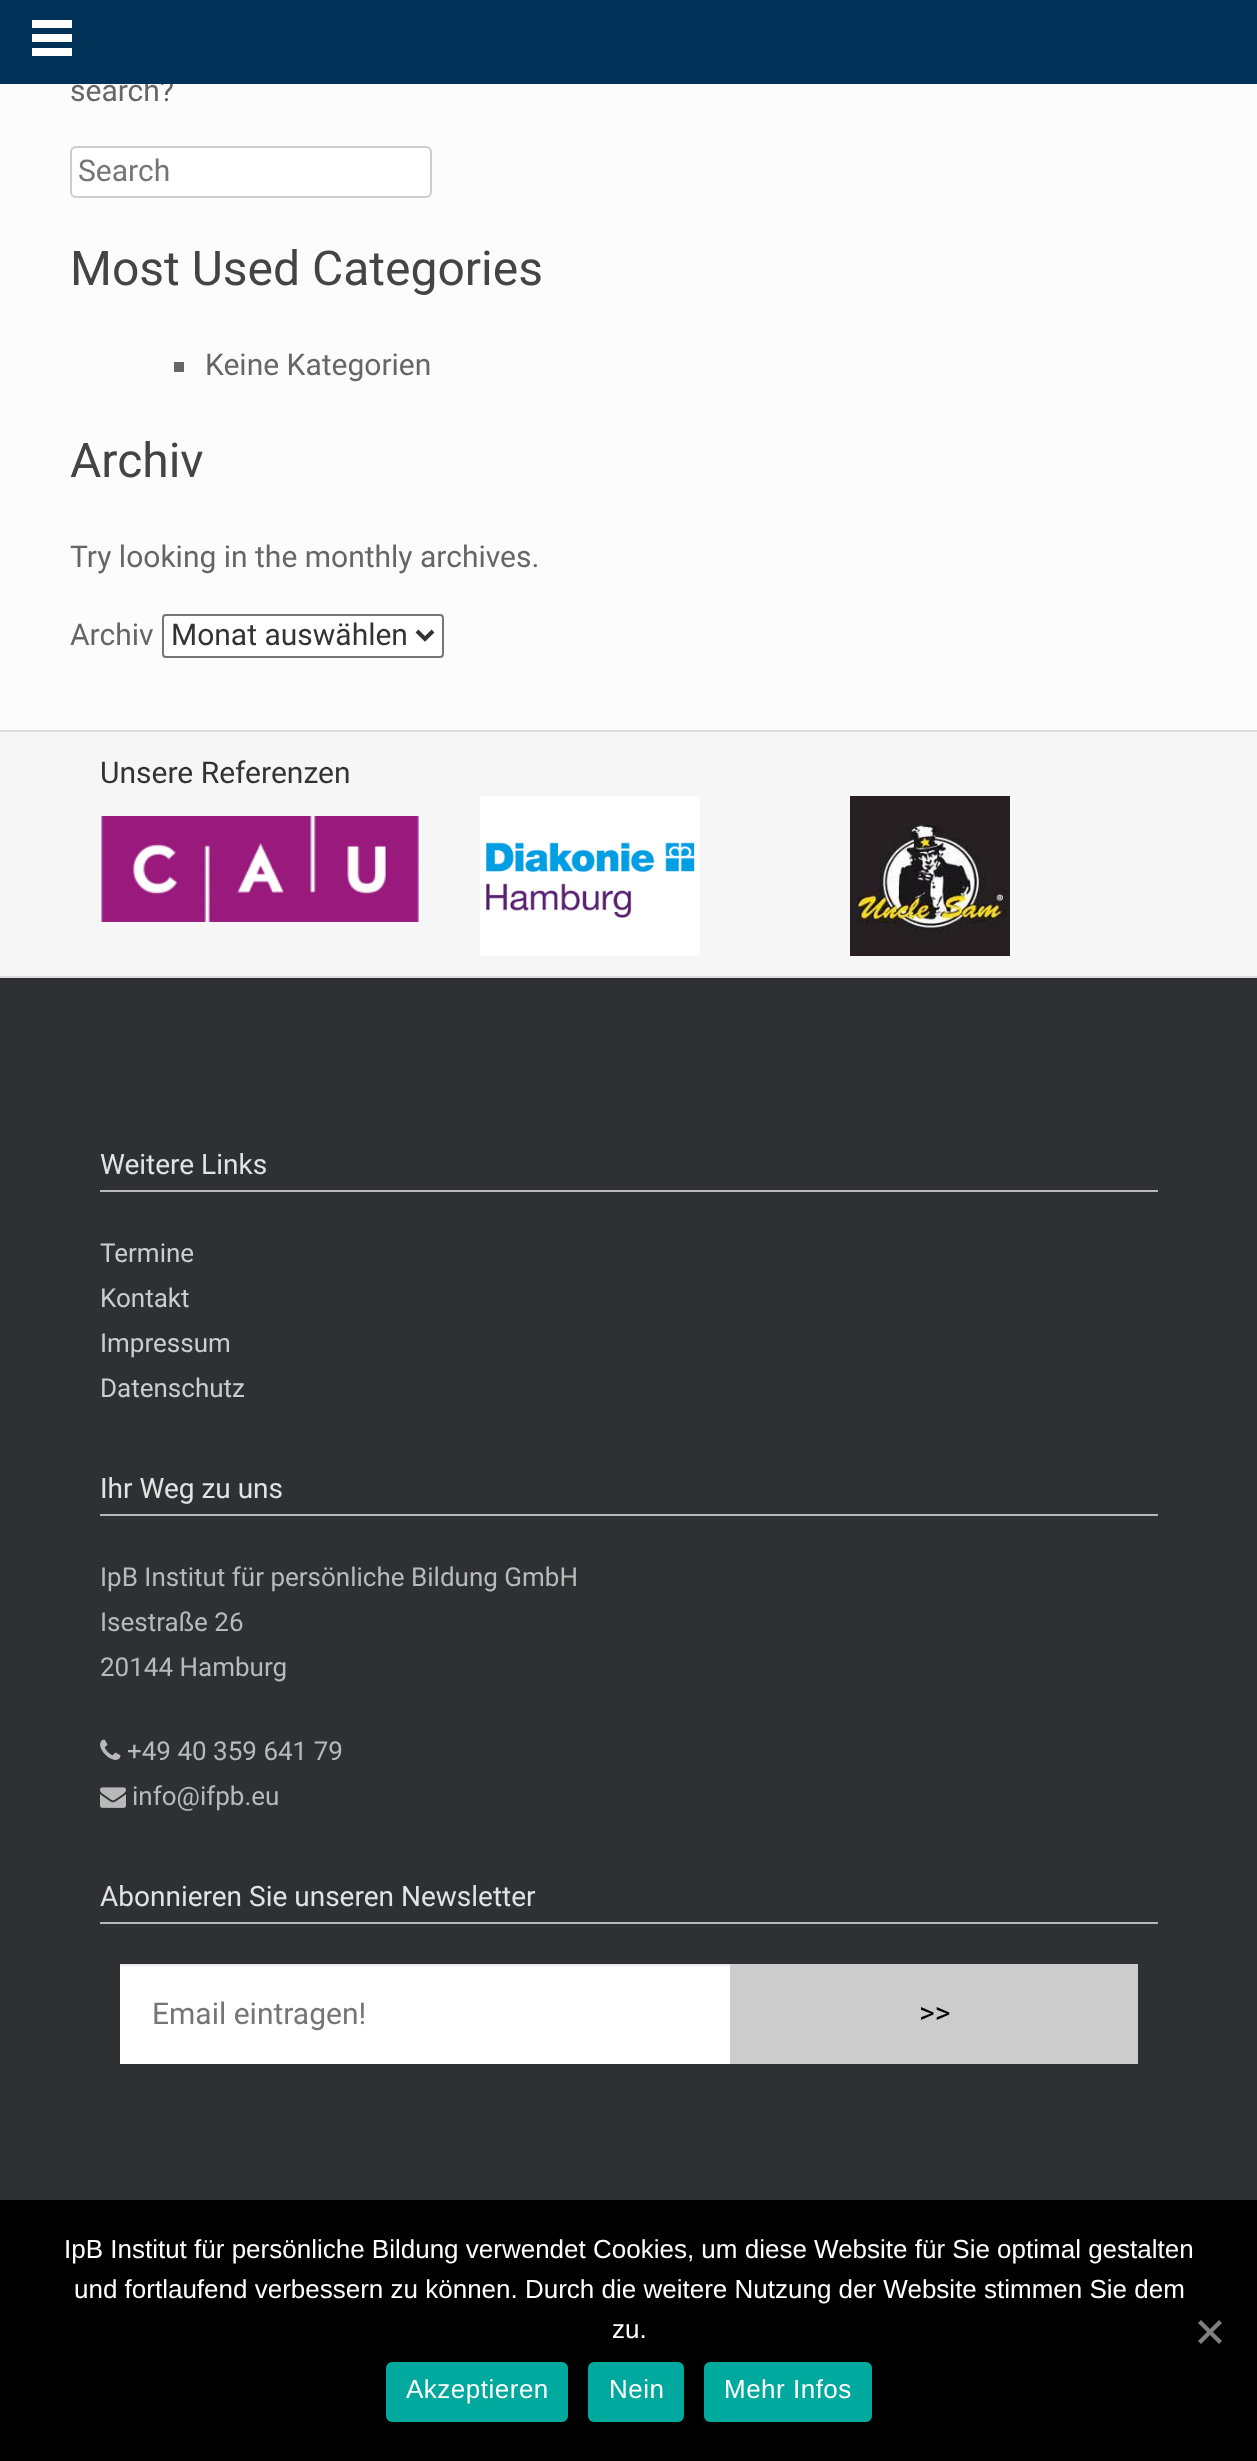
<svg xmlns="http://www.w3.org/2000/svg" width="1257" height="2461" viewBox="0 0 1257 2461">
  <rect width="100%" height="100%" fill="#fcfcfc"/>
  <text x="70" y="101" font-family="Roboto" font-size="30" fill="#666666">search?</text>
  <rect x="0" y="0" width="1257" height="84" fill="#003156"/>
  <rect x="32" y="20" width="40" height="8" fill="#ffffff"/>
  <rect x="32" y="34" width="40" height="8" fill="#ffffff"/>
  <rect x="32" y="48" width="40" height="8" fill="#ffffff"/>
  <rect x="71" y="147" width="360" height="50" rx="5" fill="#ffffff" stroke="#cccccc" stroke-width="2"/>
  <text x="78" y="181" font-family="Roboto" font-size="30" fill="#757575">Search</text>
  <text x="70" y="285" font-family="Roboto" font-size="48" fill="#444444">Most Used Categories</text>
  <rect x="174" y="362" width="10" height="10" fill="#666666"/>
  <text x="205" y="375" font-family="Roboto" font-size="30" fill="#666666">Keine Kategorien</text>
  <text x="70" y="477" font-family="Roboto" font-size="48" fill="#444444">Archiv</text>
  <text x="70" y="567" font-family="Roboto" font-size="30" fill="#666666">Try looking in the monthly archives.</text>
  <text x="70" y="645" font-family="Roboto" font-size="30" fill="#666666">Archiv</text>
  <rect x="163" y="615" width="280" height="42" rx="3" fill="#ffffff" stroke="#767676" stroke-width="2"/>
  <path d="M417 631L425 639L433 631" fill="none" stroke="#333333" stroke-width="4"/>
  <text x="171" y="645" font-family="Roboto" font-size="30" fill="#333333">Monat auswählen</text>
  <rect x="0" y="732" width="1257" height="244" fill="#f6f6f6"/>
  <rect x="0" y="730" width="1257" height="2" fill="#dddddd"/>
  <rect x="0" y="976" width="1257" height="2" fill="#dddddd"/>
  <text x="100" y="783" font-family="Roboto" font-size="30" fill="#333333">Unsere Referenzen</text>
  <image x="100" y="816" width="320" height="106" href="img1.png"/>
  <image x="480" y="796" width="220" height="160" href="img2.png"/>
  <image x="850" y="796" width="160" height="160" href="img3.png"/>
  <rect x="0" y="978" width="1257" height="1222" fill="#2f3033"/>
  <rect x="100" y="1190" width="1058" height="2" fill="#b9b9b9"/>
  <text x="100" y="1174" font-family="Roboto" font-size="28" fill="#e2e2e2">Weitere Links</text>
  <text x="100" y="1262" font-family="Roboto" font-size="26" fill="#cccccc">Termine</text>
  <text x="100" y="1307" font-family="Roboto" font-size="26" fill="#cccccc">Kontakt</text>
  <text x="100" y="1352" font-family="Roboto" font-size="26" fill="#cccccc">Impressum</text>
  <text x="100" y="1397" font-family="Roboto" font-size="26" fill="#cccccc">Datenschutz</text>
  <rect x="100" y="1514" width="1058" height="2" fill="#b9b9b9"/>
  <text x="100" y="1498" font-family="Roboto" font-size="28" fill="#e2e2e2">Ihr Weg zu uns</text>
  <text x="100" y="1586" font-family="Roboto" font-size="26" fill="#b9b9b9">IpB Institut für persönliche Bildung GmbH</text>
  <text x="100" y="1631" font-family="Roboto" font-size="26" fill="#b9b9b9">Isestraße 26</text>
  <text x="100" y="1676" font-family="Roboto" font-size="26" fill="#b9b9b9">20144 Hamburg</text>
  <image x="100" y="1739" width="21" height="21" href="img4.png"/>
  <text x="127" y="1760" font-family="Roboto" font-size="26" fill="#b9b9b9">+49 40 359 641 79</text>
  <image x="100" y="1787" width="26" height="21" href="img5.png"/>
  <text x="132" y="1805" font-family="Roboto" font-size="26" fill="#b9b9b9">info@ifpb.eu</text>
  <rect x="100" y="1922" width="1058" height="2" fill="#b9b9b9"/>
  <text x="100" y="1906" font-family="Roboto" font-size="28" fill="#e2e2e2">Abonnieren Sie unseren Newsletter</text>
  <rect x="120" y="1966" width="610" height="98" fill="#ffffff"/>
  <rect x="120" y="1964" width="610" height="2" fill="#ececec"/>
  <text x="152" y="2024" font-family="Roboto" font-size="30" fill="#757575">Email eintragen!</text>
  <rect x="730" y="1964" width="408" height="100" fill="#cccccc"/>
  <text x="919" y="2023" font-family="Roboto" font-size="30" fill="#000000">&gt;&gt;</text>
  <rect x="0" y="2200" width="1257" height="261" fill="#000000"/>
  <text x="64" y="2258" font-family="Liberation Sans" font-size="26" fill="#ffffff">IpB Institut für persönliche Bildung verwendet Cookies, um diese Website für Sie optimal gestalten</text>
  <text x="74" y="2298" font-family="Liberation Sans" font-size="26" fill="#ffffff">und fortlaufend verbessern zu können. Durch die weitere Nutzung der Website stimmen Sie dem</text>
  <text x="612" y="2338" font-family="Liberation Sans" font-size="26" fill="#ffffff">zu.</text>
  <path d="M1219 2320L1222 2323L1201 2344L1198 2341Z" fill="#808080"/>
  <path d="M1198 2323L1201 2320L1222 2341L1219 2344Z" fill="#808080"/>
  <rect x="386" y="2362" width="182" height="60" rx="6" fill="#00a99d"/>
  <text x="406" y="2398" font-family="Liberation Sans" font-size="26" letter-spacing="0.5" fill="#ffffff">Akzeptieren</text>
  <rect x="588" y="2362" width="96" height="60" rx="6" fill="#00a99d"/>
  <text x="609" y="2398" font-family="Liberation Sans" font-size="26" letter-spacing="0.5" fill="#ffffff">Nein</text>
  <rect x="704" y="2362" width="168" height="60" rx="6" fill="#00a99d"/>
  <text x="724" y="2398" font-family="Liberation Sans" font-size="26" letter-spacing="0.5" fill="#ffffff">Mehr Infos</text>
</svg>
